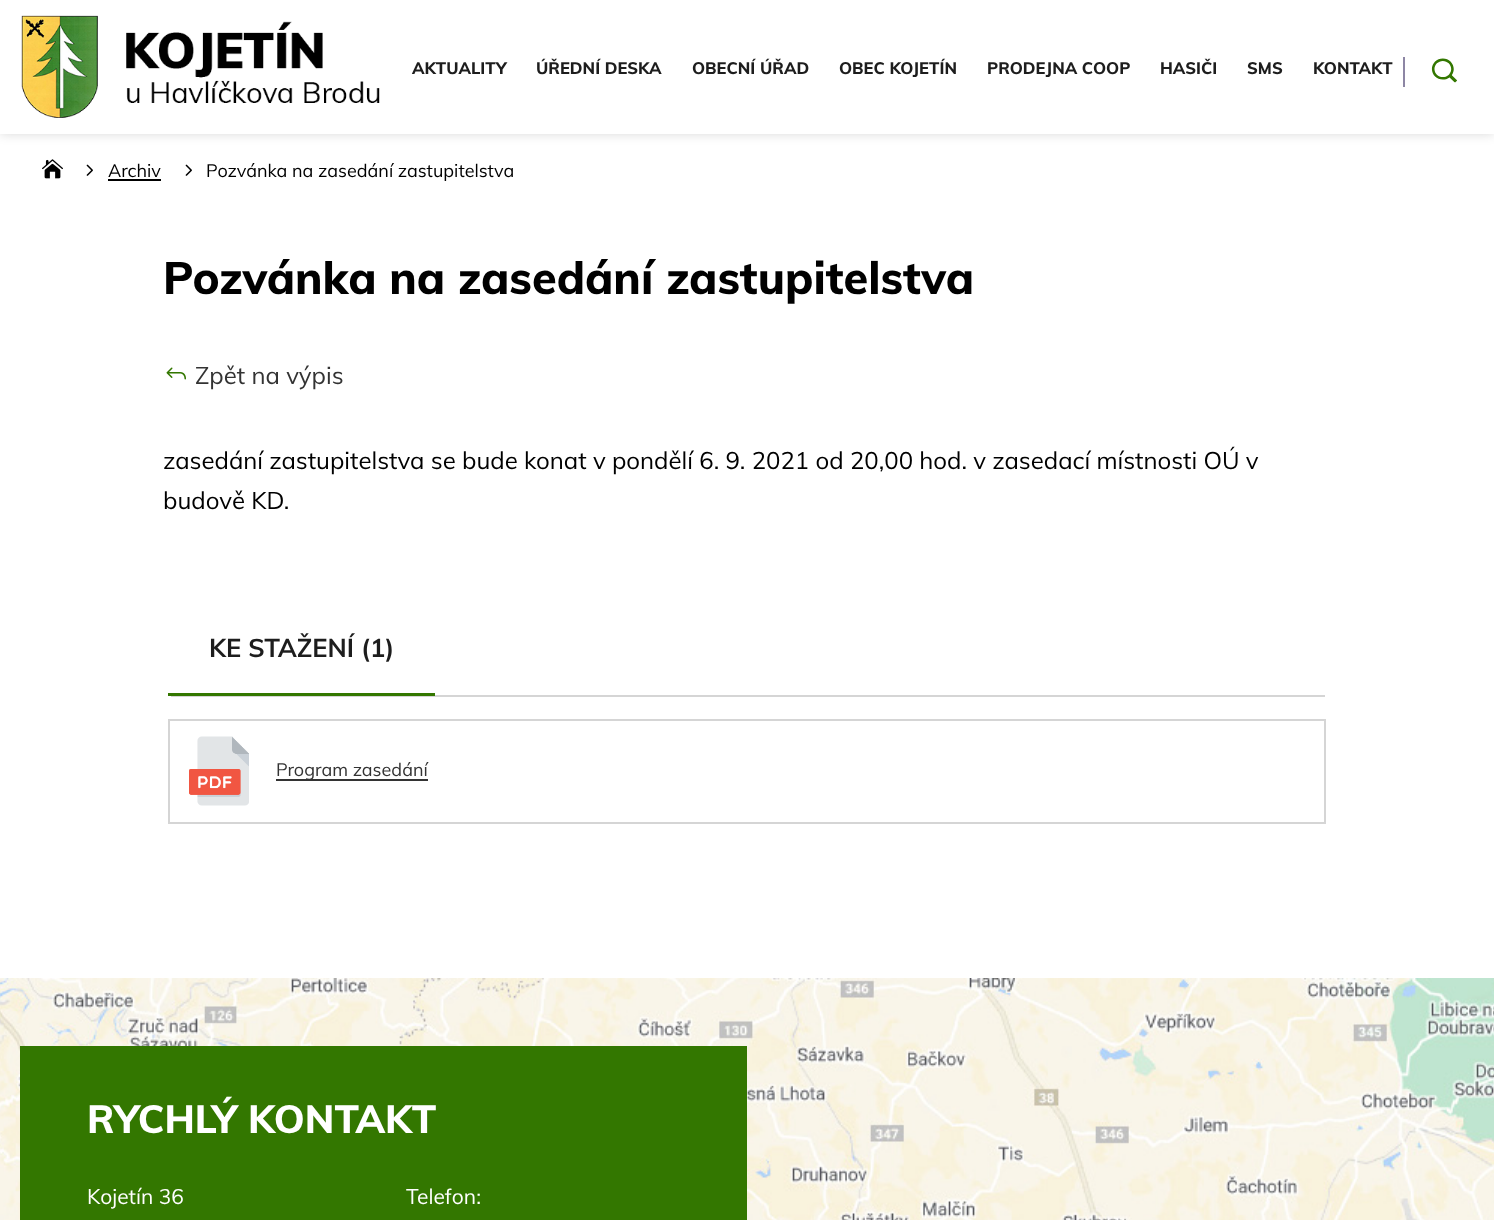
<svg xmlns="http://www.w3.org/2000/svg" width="1494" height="1220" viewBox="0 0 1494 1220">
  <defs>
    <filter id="blur1" x="-50%" y="-200%" width="200%" height="500%"><feGaussianBlur stdDeviation="5.5"/></filter>
  </defs>
  <rect width="100%" height="100%" fill="#ffffff"/>
  <rect x="0" y="0" width="1494" height="134" fill="#000000" fill-opacity="0.15" filter="url(#blur1)"/>
  <rect x="0" y="0" width="1494" height="134" fill="#ffffff"/>
  <image x="21" y="15" width="359" height="103" href="img1.png"/>
  <rect x="1403" y="57" width="2" height="30" fill="#8d86a4"/>
  <image x="1431" y="58" width="26" height="25" href="img2.png"/>
  <text x="412" y="74" font-family="Muli" font-size="16.5" font-weight="800" fill="#1d1d1d">AKTUALITY</text>
  <text x="536" y="74" font-family="Muli" font-size="16.5" font-weight="800" fill="#1d1d1d">ÚŘEDNÍ DESKA</text>
  <text x="692" y="74" font-family="Muli" font-size="16.5" font-weight="800" fill="#1d1d1d">OBECNÍ ÚŘAD</text>
  <text x="839" y="74" font-family="Muli" font-size="16.5" font-weight="800" fill="#1d1d1d">OBEC KOJETÍN</text>
  <text x="987" y="74" font-family="Muli" font-size="16.5" font-weight="800" fill="#1d1d1d">PRODEJNA COOP</text>
  <text x="1160" y="74" font-family="Muli" font-size="16.5" font-weight="800" fill="#1d1d1d">HASIČI</text>
  <text x="1247" y="74" font-family="Muli" font-size="16.5" font-weight="800" fill="#1d1d1d">SMS</text>
  <text x="1313" y="74" font-family="Muli" font-size="16.5" font-weight="800" fill="#1d1d1d">KONTAKT</text>
  <image x="42" y="159" width="21" height="20" href="img3.png"/>
  <image x="86" y="164" width="7" height="12" href="img4.png"/>
  <text x="108" y="177" font-family="Muli" font-size="18" fill="#000000">Archiv</text>
  <rect x="108" y="179" width="53" height="2" fill="#000000"/>
  <image x="185" y="164" width="7" height="12" href="img4.png"/>
  <text x="206" y="177" font-family="Muli" font-size="18" fill="#000000">Pozvánka na zasedání zastupitelstva</text>
  <text x="163" y="294" font-family="Muli" font-size="45" font-weight="800" fill="#000000">Pozvánka na zasedání zastupitelstva</text>
  <image x="166" y="367" width="20" height="13" href="img5.png"/>
  <text x="195" y="384" font-family="Muli" font-size="24" fill="#333333">Zpět na výpis</text>
  <text x="163" y="469" font-family="Muli" font-size="24" fill="#000000">zasedání zastupitelstva se bude konat v pondělí 6. 9. 2021 od 20,00 hod. v zasedací místnosti OÚ v</text>
  <text x="163" y="509" font-family="Muli" font-size="24" fill="#000000">budově KD.</text>
  <rect x="171" y="695" width="1154" height="2" fill="#d5d5d5"/>
  <rect x="168" y="693" width="267" height="3" fill="#337700"/>
  <text x="209" y="657" font-family="Muli" font-size="25.5" font-weight="bold" fill="#1d1d1d">KE STAŽENÍ (1)</text>
  <rect x="169" y="720" width="1156" height="103" fill="none" stroke="#d5d5d5" stroke-width="2"/>
  <image x="189" y="736" width="60" height="70" href="img6.png"/>
  <rect x="276" y="779" width="152" height="2" fill="#333333"/>
  <text x="276" y="776" font-family="Muli" font-size="18" fill="#333333">Program zasedání</text>
  <image x="0" y="978" width="1494" height="242" href="img7.png"/>
  <rect x="20" y="1046" width="727" height="174" fill="#337700"/>
  <text x="87" y="1133" font-family="Muli" font-size="39" font-weight="800" fill="#ffffff">RYCHLÝ KONTAKT</text>
  <text x="87" y="1204" font-family="Muli" font-size="21" fill="#ffffff">Kojetín 36</text>
  <text x="406" y="1204" font-family="Muli" font-size="21" fill="#ffffff">Telefon:</text>
</svg>
